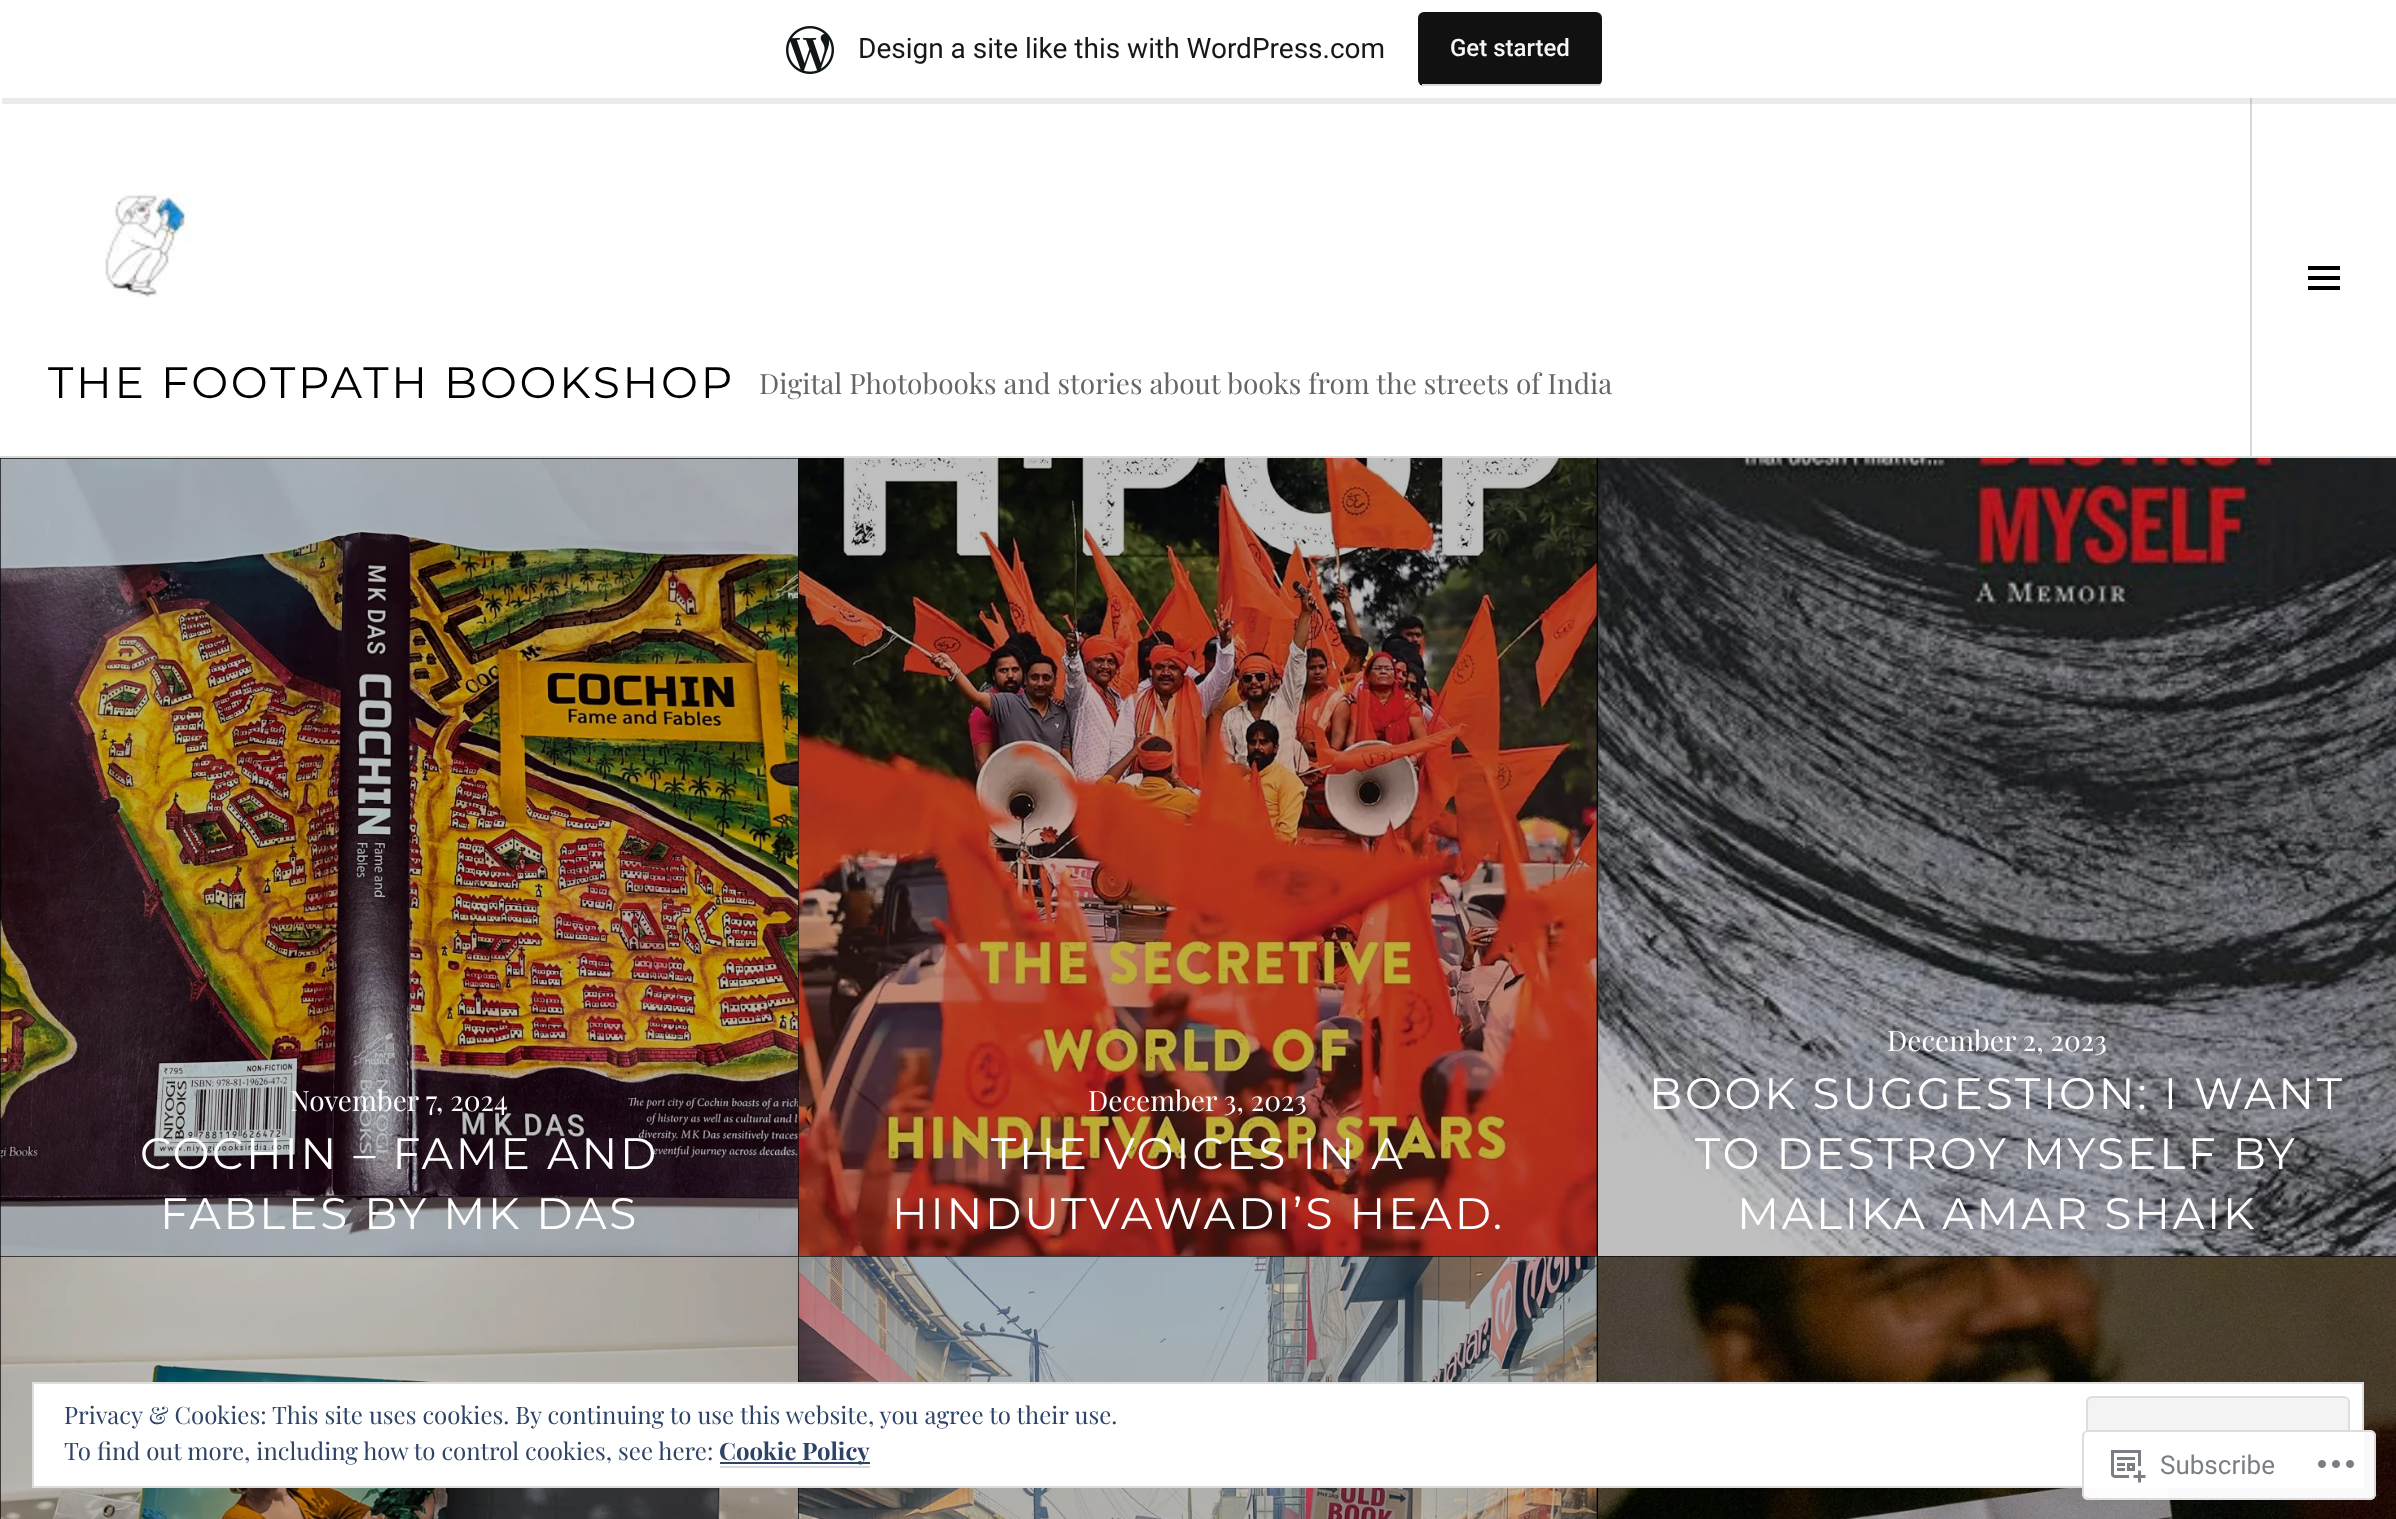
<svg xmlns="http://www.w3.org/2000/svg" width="2396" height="1519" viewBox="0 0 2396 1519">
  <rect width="100%" height="100%" fill="#ffffff"/>
  <rect x="2250" y="98" width="2" height="358" fill="#d9d9d9"/>
  <path d="M2 98V104H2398V6H2396V98Z" fill="#000000" fill-opacity="0.08"/>
  <image x="786" y="26" width="48" height="48" href="img1.png"/>
  <text x="858" y="58" font-family="Roboto" font-size="28" fill="#171717">Design a site like this with WordPress.com</text>
  <rect x="1418" y="12" width="184" height="74" rx="6" fill="#111111"/>
  <rect x="1422" y="84" width="178" height="2" fill="#d9d9d9"/>
  <text x="1450" y="56" font-family="Roboto" font-size="24" font-weight="500" fill="#f6f7f7">Get started</text>
  <rect x="0" y="456" width="2396" height="2" fill="#d9d9d9"/>
  <image x="105" y="193" width="87" height="105" href="img2.png"/>
  <text x="48" y="398" font-family="Montserrat" font-size="44" letter-spacing="2.75" fill="#000000">THE FOOTPATH BOOKSHOP</text>
  <text x="759" y="394" font-family="Playfair Display" font-size="28" fill="#666666">Digital Photobooks and stories about books from the streets of India</text>
  <image x="2308" y="266" width="32" height="24" href="img3.png"/>
  <rect x="0" y="458" width="1598" height="798" fill="#000000"/>
  <image x="0" y="458" width="798" height="798" href="img4.png"/>
  <text x="290" y="1111" font-family="Playfair Display" font-size="28" fill="#ffffff">November 7, 2024</text>
  <text x="140" y="1169" font-family="Montserrat" font-size="44" letter-spacing="2.75" fill="#ffffff">COCHIN – FAME AND</text>
  <text x="160" y="1229" font-family="Montserrat" font-size="44" letter-spacing="2.75" fill="#ffffff">FABLES BY MK DAS</text>
  <image x="798" y="458" width="799" height="798" href="img5.png"/>
  <text x="1088" y="1111" font-family="Playfair Display" font-size="28" fill="#ffffff">December 3, 2023</text>
  <text x="991" y="1169" font-family="Montserrat" font-size="44" letter-spacing="2.75" fill="#ffffff">THE VOICES IN A</text>
  <text x="892" y="1229" font-family="Montserrat" font-size="44" letter-spacing="2.75" fill="#ffffff">HINDUTVAWADI’S HEAD.</text>
  <image x="1598" y="458" width="798" height="798" href="img6.png"/>
  <text x="1887" y="1051" font-family="Playfair Display" font-size="28" fill="#ffffff">December 2, 2023</text>
  <text x="1649" y="1109" font-family="Montserrat" font-size="44" letter-spacing="2.75" fill="#ffffff">BOOK SUGGESTION: I WANT</text>
  <text x="1695" y="1169" font-family="Montserrat" font-size="44" letter-spacing="2.75" fill="#ffffff">TO DESTROY MYSELF BY</text>
  <text x="1737" y="1229" font-family="Montserrat" font-size="44" letter-spacing="2.75" fill="#ffffff">MALIKA AMAR SHAIK</text>
  <rect x="0" y="1256" width="1598" height="263" fill="#000000"/>
  <image x="0" y="1256" width="798" height="263" href="img7.png"/>
  <image x="798" y="1256" width="799" height="263" href="img8.png"/>
  <rect x="1598" y="1256" width="798" height="1" fill="#000000"/>
  <image x="1598" y="1256" width="798" height="263" href="img9.png"/>
  <rect x="33" y="1383" width="2330" height="104" fill="#ffffff" stroke="#dedede" stroke-width="2"/>
  <text x="64" y="1424" font-family="Playfair Display" font-size="24" fill="#2e4467">Privacy &amp; Cookies: This site uses cookies. By continuing to use this website, you agree to their use.</text>
  <rect x="2087" y="1397" width="262" height="76" rx="5" fill="#f3f3f3" stroke="#dedede" stroke-width="2"/>
  <text x="64" y="1460" font-family="Playfair Display" font-size="24" fill="#2e4467">To find out more, including how to control cookies, see here:</text>
  <rect x="720" y="1462" width="150" height="2" fill="#2e4467"/>
  <text x="719" y="1460" font-family="Playfair Display" font-size="24" font-weight="bold" fill="#2e4467">Cookie Policy</text>
  <rect x="720" y="1466" width="150" height="2" fill="#d9d9d9"/>
  <rect x="2082" y="1430" width="294" height="70" rx="6" fill="#ffffff" fill-opacity="0.98"/>
  <rect x="2083" y="1431" width="292" height="68" rx="5" fill="none" stroke="#dcdcde" stroke-opacity="0.98" stroke-width="2"/>
  <image x="2111" y="1450" width="35" height="33" href="img10.png"/>
  <text x="2160" y="1474" font-family="Roboto" font-size="26" fill="#7b7f84">Subscribe</text>
  <image x="2318" y="1460" width="36" height="8" href="img11.png"/>
</svg>
